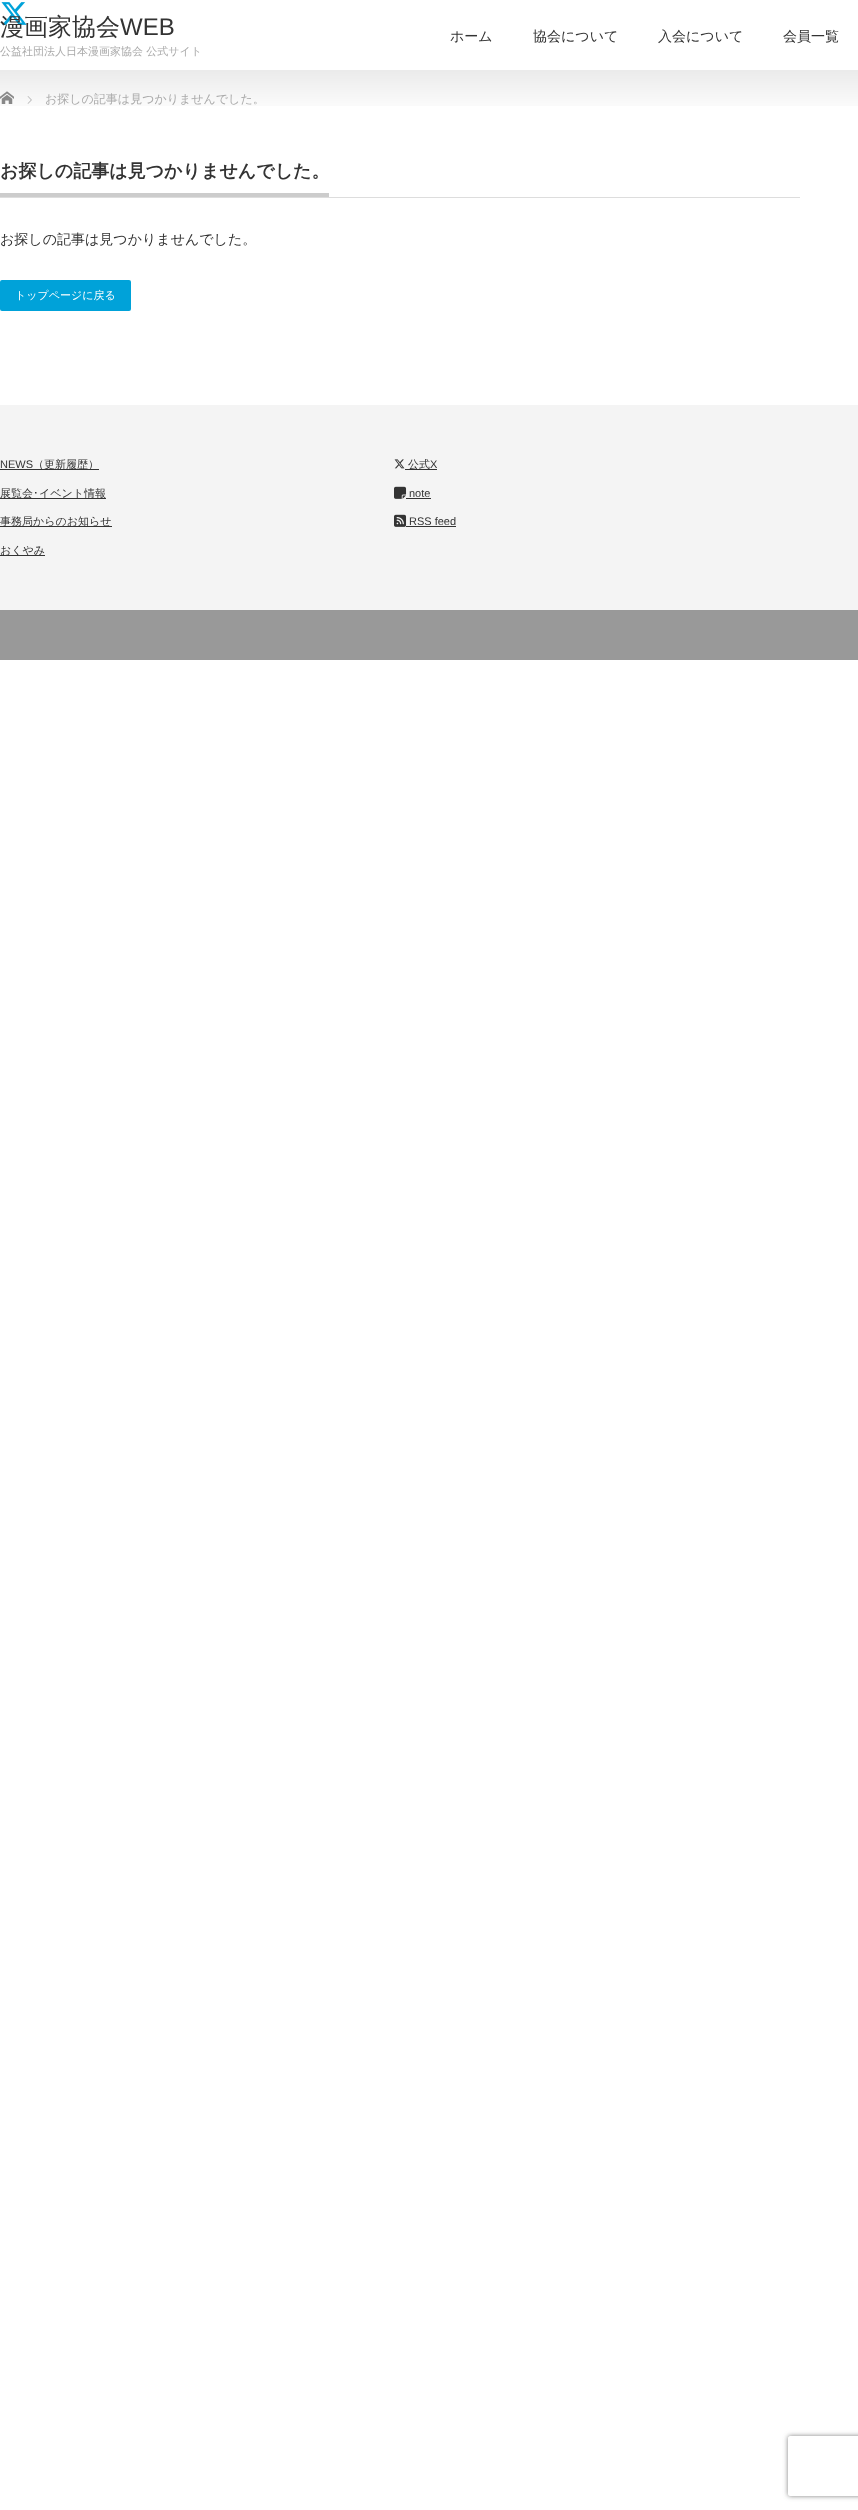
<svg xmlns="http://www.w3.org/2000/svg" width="858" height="2510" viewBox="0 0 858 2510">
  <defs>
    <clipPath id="clip1"><path d="M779 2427H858V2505H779ZM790 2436H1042C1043 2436 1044 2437 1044 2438V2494C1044 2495 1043 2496 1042 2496H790C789 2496 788 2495 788 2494V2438C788 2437 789 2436 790 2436Z" clip-rule="evenodd"/></clipPath>
    <filter id="blur1" x="-50%" y="-200%" width="200%" height="500%"><feGaussianBlur stdDeviation="2.5"/></filter>
  </defs>
  <rect width="100%" height="100%" fill="#ffffff"/>
  <image x="1" y="2" width="26" height="23" href="img1.png"/>
  <text x="0" y="35" font-family="WenQuanYi Zen Hei" font-size="24" font-weight="500" fill="#333333">漫画家協会</text>
  <text x="120" y="35" font-family="Liberation Sans" font-size="24" fill="#333333">WEB</text>
  <text x="450" y="41" font-family="WenQuanYi Zen Hei" font-size="14" font-weight="500" fill="#333333">ホーム</text>
  <text x="533" y="41" font-family="WenQuanYi Zen Hei" font-size="14" font-weight="500" fill="#333333">協会について</text>
  <text x="658" y="41" font-family="WenQuanYi Zen Hei" font-size="14" font-weight="500" fill="#333333">入会について</text>
  <text x="783" y="41" font-family="WenQuanYi Zen Hei" font-size="14" font-weight="500" fill="#333333">会員一覧</text>
  <text x="0" y="55" font-family="WenQuanYi Zen Hei" font-size="11" font-weight="500" fill="#aaaaaa">公益社団法人日本漫画家協会 公式サイト</text>
  <image x="0" y="70" width="858" height="36" href="img2.png"/>
  <image x="0" y="91" width="14" height="13" href="img3.png"/>
  <image x="27" y="96" width="5" height="8" href="img4.png"/>
  <text x="45" y="103" font-family="WenQuanYi Zen Hei" font-size="12" font-weight="500" fill="#aaaaaa">お探しの記事は見つかりませんでした。</text>
  <rect x="0" y="197" width="800" height="1" fill="#dddddd"/>
  <rect x="0" y="193" width="329" height="4" fill="#cccccc"/>
  <text x="0" y="177" font-family="WenQuanYi Zen Hei" font-size="18" font-weight="bold" fill="#333333">お探しの記事は見つかりませんでした。</text>
  <text x="0" y="244" font-family="WenQuanYi Zen Hei" font-size="14" font-weight="500" fill="#333333">お探しの記事は見つかりませんでした。</text>
  <rect x="0" y="280" width="131" height="31" rx="2" fill="#00a2d9"/>
  <text x="15" y="299" font-family="WenQuanYi Zen Hei" font-size="11" font-weight="500" fill="#ffffff">トップページに戻る</text>
  <rect x="0" y="405" width="858" height="205" fill="#f4f4f4"/>
  <text x="0" y="468" font-family="Liberation Sans" font-size="11" fill="#333333">NEWS</text>
  <rect x="0" y="469" width="99" height="1" fill="#333333"/>
  <text x="33" y="468" font-family="WenQuanYi Zen Hei" font-size="11" font-weight="500" fill="#333333">（更新履歴）</text>
  <rect x="0" y="498" width="106" height="1" fill="#333333"/>
  <text x="0" y="497" font-family="WenQuanYi Zen Hei" font-size="11" font-weight="500" fill="#333333">展覧会</text>
  <text x="33" y="497" font-family="IPAGothic" font-size="11" fill="#333333">･</text>
  <text x="39" y="497" font-family="WenQuanYi Zen Hei" font-size="11" font-weight="500" fill="#333333">イベント情報</text>
  <rect x="0" y="526" width="112" height="1" fill="#333333"/>
  <text x="0" y="525" font-family="WenQuanYi Zen Hei" font-size="11" font-weight="500" fill="#333333">事務局からのお知らせ</text>
  <rect x="0" y="555" width="45" height="1" fill="#333333"/>
  <text x="0" y="554" font-family="WenQuanYi Zen Hei" font-size="11" font-weight="500" fill="#333333">おくやみ</text>
  <image x="394" y="459" width="11" height="10" href="img5.png"/>
  <rect x="405" y="469" width="32" height="1" fill="#333333"/>
  <text x="408" y="468" font-family="WenQuanYi Zen Hei" font-size="11" font-weight="500" fill="#333333">公式</text>
  <text x="430" y="468" font-family="Liberation Sans" font-size="11" fill="#333333">X</text>
  <image x="394" y="486" width="13" height="13" href="img6.png"/>
  <text x="409" y="497" font-family="Liberation Sans" font-size="11" fill="#333333">note</text>
  <rect x="406" y="498" width="25" height="1" fill="#333333"/>
  <image x="394" y="514" width="13" height="13" href="img7.png"/>
  <text x="409" y="525" font-family="Liberation Sans" font-size="11" fill="#333333">RSS feed</text>
  <rect x="406" y="526" width="50" height="1" fill="#333333"/>
  <rect x="0" y="610" width="858" height="50" fill="#999999"/>
  <g clip-path="url(#clip1)">
    <rect x="788" y="2436" width="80" height="60" rx="2" fill="#808080" filter="url(#blur1)"/>
  </g>
</svg>
